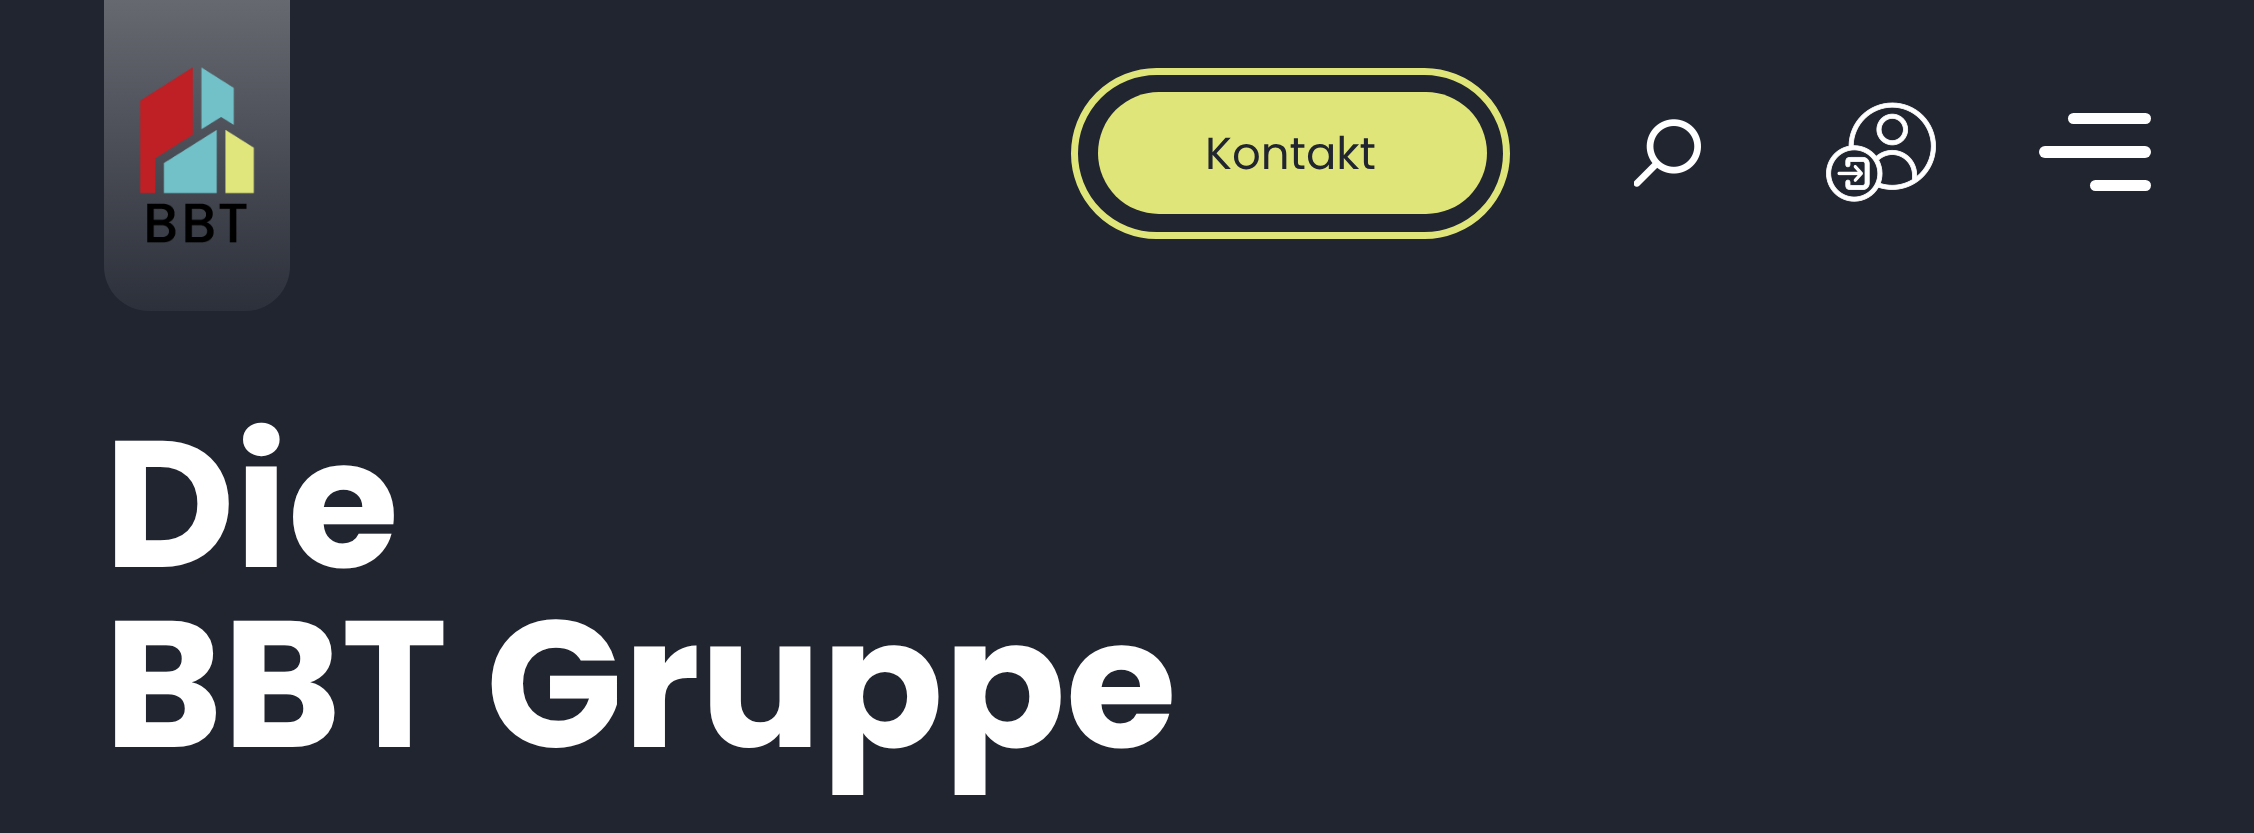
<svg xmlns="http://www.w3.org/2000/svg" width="2254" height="833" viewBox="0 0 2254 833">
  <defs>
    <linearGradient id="g1" gradientUnits="userSpaceOnUse" x1="197" y1="-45" x2="197" y2="311"><stop offset="0" stop-color="#6f7178"/><stop offset="1" stop-color="#2c303a"/></linearGradient>
  </defs>
  <rect width="100%" height="100%" fill="#212530"/>
  <path d="M104-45H290V266C290 291 270 311 245 311H149C124 311 104 291 104 266Z" fill="url(#g1)"/>
  <image x="139" y="67" width="116" height="176" href="img1.png"/>
  <rect x="1074.5" y="71.5" width="432" height="164" rx="82" fill="none" stroke="#e0e57a" stroke-width="7"/>
  <rect x="1098" y="92" width="389" height="122" rx="61" fill="#e0e57a"/>
  <text x="1205" y="169" font-family="Poppins" font-size="45" fill="#212530">Kontakt</text>
  <image x="1634" y="119" width="67" height="68" href="img2.png"/>
  <image x="1826" y="102" width="110" height="100" href="img3.png"/>
  <rect x="2068" y="113" width="83" height="11" rx="5.5" fill="#ffffff"/>
  <rect x="2039" y="146" width="112" height="12" rx="6" fill="#ffffff"/>
  <rect x="2090" y="180" width="61" height="11" rx="5.5" fill="#ffffff"/>
  <text x="104" y="567" font-family="Poppins" font-size="180" font-weight="bold" fill="#ffffff">Die</text>
  <text x="104" y="747" font-family="Poppins" font-size="180" font-weight="bold" fill="#ffffff">BBT Gruppe</text>
</svg>
